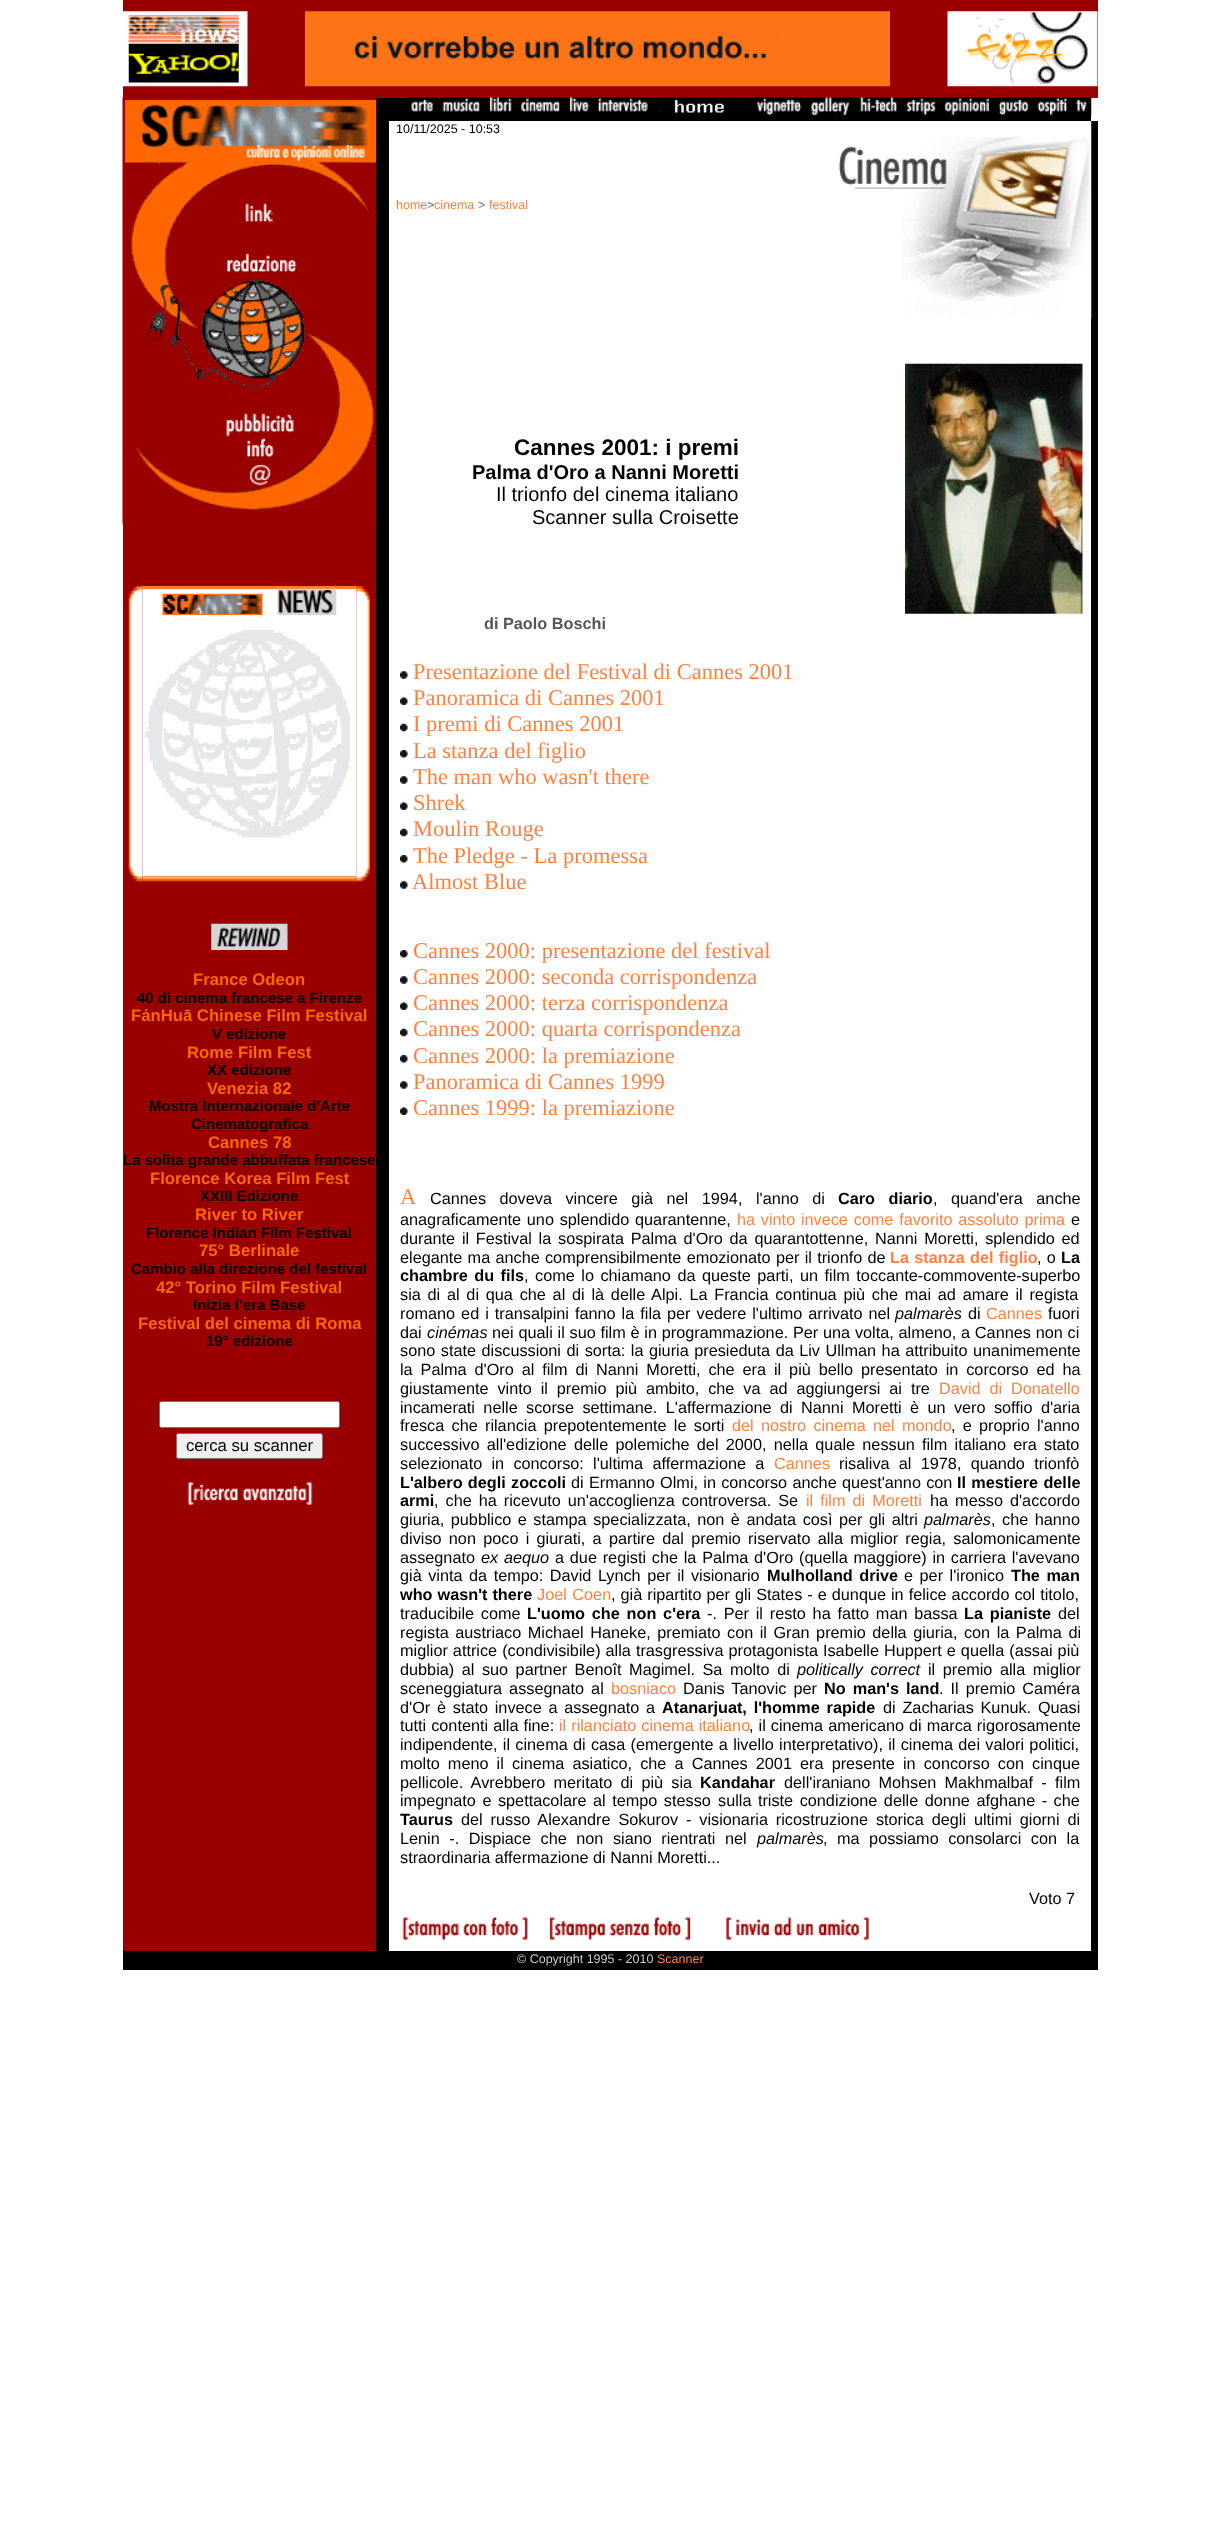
<svg xmlns="http://www.w3.org/2000/svg" width="1219" height="2535" viewBox="0 0 1219 2535">
  <rect width="100%" height="100%" fill="#ffffff"/>
  <rect x="123" y="0" width="975" height="98" fill="#990000"/>
  <image x="123" y="11" width="125" height="76" href="img1.png"/>
  <image x="305" y="11" width="585" height="76" href="img2.png"/>
  <image x="947" y="11" width="151" height="76" href="img3.png"/>
  <text x="396" y="133" font-family="Liberation Sans" font-size="12.5" fill="#000000">10/11/2025 - 10:53</text>
  <text x="396" y="209" font-family="Liberation Sans" font-size="12.5" fill="#ff8040">home</text>
  <text x="427" y="209" font-family="Liberation Sans" font-size="12.5" fill="#666666">&gt;</text>
  <text x="434" y="209" font-family="Liberation Sans" font-size="12.5" fill="#ff8040">cinema</text>
  <text x="478" y="209" font-family="Liberation Sans" font-size="12.5" fill="#666666">&gt;</text>
  <text x="489" y="209" font-family="Liberation Sans" font-size="12.5" fill="#ff8040">festival</text>
  <rect x="1091" y="121" width="7" height="1830" fill="#000000"/>
  <image x="838" y="121" width="254" height="198" href="img4.png"/>
  <text x="514" y="455" font-family="Liberation Sans" font-size="22.5" font-weight="bold" fill="#000000">Cannes 2001: i premi</text>
  <text x="472" y="479" font-family="Liberation Sans" font-size="20" font-weight="bold" fill="#000000">Palma d'Oro a Nanni Moretti</text>
  <text x="496" y="501" font-family="Liberation Sans" font-size="20" fill="#000000">Il trionfo del cinema italiano</text>
  <text x="532" y="524" font-family="Liberation Sans" font-size="20" fill="#000000">Scanner sulla Croisette</text>
  <image x="905" y="363" width="178" height="251" href="img5.png"/>
  <text x="484" y="629" font-family="Liberation Sans" font-size="16.25" font-weight="bold" fill="#555555">di Paolo Boschi</text>
  <rect x="123" y="523" width="253" height="1428" fill="#990000"/>
  <rect x="376" y="98" width="13" height="1853" fill="#000000"/>
  <image x="122" y="97" width="255" height="68" href="img6.png"/>
  <image x="122" y="165" width="255" height="359" href="img7.png"/>
  <image x="142" y="589" width="215" height="288" href="img10.png"/>
  <image x="128" y="586" width="15" height="296" href="img8.png"/>
  <rect x="142" y="586" width="215" height="3" fill="#fa7d2c"/>
  <image x="356" y="586" width="14" height="296" href="img9.png"/>
  <image x="162" y="593" width="101" height="22" href="img11.png"/>
  <image x="277" y="588" width="60" height="27" href="img12.png"/>
  <image x="142" y="876" width="215" height="6" href="img13.png"/>
  <image x="211" y="923" width="77" height="27" href="img14.png"/>
  <text x="193" y="985" font-family="Liberation Sans" font-size="16.7" font-weight="bold" fill="#ff6600">France Odeon</text>
  <text x="137" y="1003" font-family="Liberation Sans" font-size="15" font-weight="bold" fill="#000000">40 di cinema francese a Firenze</text>
  <text x="131" y="1021" font-family="Liberation Sans" font-size="16.7" font-weight="bold" fill="#ff6600">FánHuā Chinese Film Festival</text>
  <text x="212" y="1039" font-family="Liberation Sans" font-size="15" font-weight="bold" fill="#000000">V edizione</text>
  <text x="187" y="1058" font-family="Liberation Sans" font-size="16.7" font-weight="bold" fill="#ff6600">Rome Film Fest</text>
  <text x="207" y="1075" font-family="Liberation Sans" font-size="15" font-weight="bold" fill="#000000">XX edizione</text>
  <text x="207" y="1094" font-family="Liberation Sans" font-size="16.7" font-weight="bold" fill="#ff6600">Venezia 82</text>
  <text x="149" y="1111" font-family="Liberation Sans" font-size="15" font-weight="bold" fill="#000000">Mostra Internazionale d'Arte</text>
  <text x="191" y="1129" font-family="Liberation Sans" font-size="15" font-weight="bold" fill="#000000">Cinematografica</text>
  <text x="208" y="1148" font-family="Liberation Sans" font-size="16.7" font-weight="bold" fill="#ff6600">Cannes 78</text>
  <text x="123" y="1165" font-family="Liberation Sans" font-size="15" font-weight="bold" fill="#000000">La solita grande abbuffata francese</text>
  <text x="150" y="1184" font-family="Liberation Sans" font-size="16.7" font-weight="bold" fill="#ff6600">Florence Korea Film Fest</text>
  <text x="200" y="1201" font-family="Liberation Sans" font-size="15" font-weight="bold" fill="#000000">XXIII Edizione</text>
  <text x="195" y="1220" font-family="Liberation Sans" font-size="16.7" font-weight="bold" fill="#ff6600">River to River</text>
  <text x="146" y="1238" font-family="Liberation Sans" font-size="15" font-weight="bold" fill="#000000">Florence Indian Film Festival</text>
  <text x="199" y="1256" font-family="Liberation Sans" font-size="16.7" font-weight="bold" fill="#ff6600">75° Berlinale</text>
  <text x="131" y="1274" font-family="Liberation Sans" font-size="15" font-weight="bold" fill="#000000">Cambio alla direzione del festival</text>
  <text x="156" y="1293" font-family="Liberation Sans" font-size="16.7" font-weight="bold" fill="#ff6600">42° Torino Film Festival</text>
  <text x="193" y="1310" font-family="Liberation Sans" font-size="15" font-weight="bold" fill="#000000">Inizia l’era Base</text>
  <text x="138" y="1329" font-family="Liberation Sans" font-size="16.7" font-weight="bold" fill="#ff6600">Festival del cinema di Roma</text>
  <text x="206" y="1346" font-family="Liberation Sans" font-size="15" font-weight="bold" fill="#000000">19° edizione</text>
  <rect x="159.5" y="1401.5" width="180" height="26" rx="2" fill="#ffffff" stroke="#767676"/>
  <rect x="176.5" y="1433.5" width="146" height="25" rx="2" fill="#efefef" stroke="#767676"/>
  <text x="186" y="1451" font-family="Liberation Sans" font-size="16.7" fill="#000000">cerca su scanner</text>
  <image x="187" y="1482" width="126" height="24" href="img15.png"/>
  <rect x="389" y="98" width="702" height="23" fill="#000000"/>
  <image x="406" y="97" width="31" height="15" href="img16.png"/>
  <image x="441" y="97" width="42" height="15" href="img17.png"/>
  <image x="487" y="97" width="27" height="15" href="img18.png"/>
  <image x="518" y="97" width="45" height="15" href="img19.png"/>
  <image x="567" y="97" width="25" height="15" href="img20.png"/>
  <image x="596" y="97" width="54" height="15" href="img21.png"/>
  <image x="655" y="97" width="95" height="16" href="img22.png"/>
  <image x="755" y="97" width="48" height="19" href="img23.png"/>
  <image x="807" y="97" width="47" height="19" href="img24.png"/>
  <image x="858" y="97" width="41" height="15" href="img25.png"/>
  <image x="903" y="97" width="35" height="19" href="img26.png"/>
  <image x="942" y="97" width="50" height="19" href="img27.png"/>
  <image x="996" y="97" width="34" height="19" href="img28.png"/>
  <image x="1035" y="97" width="34" height="19" href="img29.png"/>
  <image x="1073" y="97" width="19" height="20" href="img30.png"/>
  <image x="400" y="671" width="8" height="8" href="img31.png"/>
  <text x="413" y="679" font-family="Liberation Serif" font-size="22.5" fill="#ff8040">Presentazione del Festival di Cannes 2001</text>
  <image x="400" y="697" width="8" height="8" href="img32.png"/>
  <text x="413" y="705" font-family="Liberation Serif" font-size="22.5" fill="#ff8040">Panoramica di Cannes 2001</text>
  <image x="400" y="723" width="8" height="9" href="img33.png"/>
  <text x="413" y="731" font-family="Liberation Serif" font-size="22.5" fill="#ff8040">I premi di Cannes 2001</text>
  <image x="400" y="750" width="8" height="8" href="img34.png"/>
  <text x="413" y="758" font-family="Liberation Serif" font-size="22.5" fill="#ff8040">La stanza del figlio</text>
  <image x="400" y="776" width="8" height="8" href="img35.png"/>
  <text x="413" y="784" font-family="Liberation Serif" font-size="22.5" fill="#ff8040">The man who wasn't there</text>
  <image x="400" y="802" width="8" height="8" href="img32.png"/>
  <text x="413" y="810" font-family="Liberation Serif" font-size="22.5" fill="#ff8040">Shrek</text>
  <image x="400" y="828" width="8" height="9" href="img33.png"/>
  <text x="413" y="836" font-family="Liberation Serif" font-size="22.5" fill="#ff8040">Moulin Rouge</text>
  <image x="400" y="855" width="8" height="8" href="img34.png"/>
  <text x="413" y="863" font-family="Liberation Serif" font-size="22.5" fill="#ff8040">The Pledge - La promessa</text>
  <image x="400" y="881" width="8" height="8" href="img31.png"/>
  <text x="412" y="889" font-family="Liberation Serif" font-size="22.5" fill="#ff8040">Almost Blue</text>
  <image x="400" y="950" width="8" height="8" href="img34.png"/>
  <text x="413" y="958" font-family="Liberation Serif" font-size="22.5" fill="#ff8040">Cannes 2000: presentazione del festival</text>
  <image x="400" y="976" width="8" height="8" href="img31.png"/>
  <text x="413" y="984" font-family="Liberation Serif" font-size="22.5" fill="#ff8040">Cannes 2000: seconda corrispondenza</text>
  <image x="400" y="1002" width="8" height="8" href="img32.png"/>
  <text x="413" y="1010" font-family="Liberation Serif" font-size="22.5" fill="#ff8040">Cannes 2000: terza corrispondenza</text>
  <image x="400" y="1028" width="8" height="9" href="img33.png"/>
  <text x="413" y="1036" font-family="Liberation Serif" font-size="22.5" fill="#ff8040">Cannes 2000: quarta corrispondenza</text>
  <image x="400" y="1055" width="8" height="8" href="img34.png"/>
  <text x="413" y="1063" font-family="Liberation Serif" font-size="22.5" fill="#ff8040">Cannes 2000: la premiazione</text>
  <image x="400" y="1081" width="8" height="8" href="img31.png"/>
  <text x="413" y="1089" font-family="Liberation Serif" font-size="22.5" fill="#ff8040">Panoramica di Cannes 1999</text>
  <image x="400" y="1107" width="8" height="8" href="img32.png"/>
  <text x="413" y="1115" font-family="Liberation Serif" font-size="22.5" fill="#ff8040">Cannes 1999: la premiazione</text>
  <text x="400" y="1204" font-family="Liberation Serif" font-size="22.5" fill="#ff8040">A</text>
  <text x="430" y="1204" word-spacing="9" font-family="Liberation Sans" font-size="16.25" fill="#000000">Cannes doveva vincere già nel 1994, l'anno di</text>
  <text x="838" y="1204" word-spacing="9" font-family="Liberation Sans" font-size="16.25" font-weight="bold" fill="#000000">Caro diario</text>
  <text x="933" y="1204" word-spacing="9" font-family="Liberation Sans" font-size="16.25" fill="#000000">, quand'era anche</text>
  <text x="400" y="1225" word-spacing="1.25" font-family="Liberation Sans" font-size="16.25" fill="#000000">anagraficamente uno splendido quarantenne,</text>
  <text x="737" y="1225" word-spacing="1.25" font-family="Liberation Sans" font-size="16.25" fill="#ff8040">ha vinto invece come favorito assoluto prima</text>
  <text x="1071" y="1225" font-family="Liberation Sans" font-size="16.25" fill="#000000">e</text>
  <text x="400" y="1244" word-spacing="2.25" font-family="Liberation Sans" font-size="16.25" fill="#000000">durante il Festival la sospirata Palma d'Oro da quarantottenne, Nanni Moretti, splendido ed</text>
  <text x="400" y="1263" word-spacing="0.75" font-family="Liberation Sans" font-size="16.25" fill="#000000">elegante ma anche comprensibilmente emozionato per il trionfo de</text>
  <text x="890" y="1263" word-spacing="0.75" font-family="Liberation Sans" font-size="16.25" font-weight="bold" fill="#ff8040">La stanza del figlio</text>
  <text x="1037" y="1263" word-spacing="0.75" font-family="Liberation Sans" font-size="16.25" fill="#000000">, o</text>
  <text x="1061" y="1263" font-family="Liberation Sans" font-size="16.25" font-weight="bold" fill="#000000">La</text>
  <text x="400" y="1281" word-spacing="2" font-family="Liberation Sans" font-size="16.25" font-weight="bold" fill="#000000">chambre du fils</text>
  <text x="524" y="1281" word-spacing="2" font-family="Liberation Sans" font-size="16.25" fill="#000000">, come lo chiamano da queste parti, un film toccante-commovente-superbo</text>
  <text x="400" y="1300" word-spacing="2.25" font-family="Liberation Sans" font-size="16.25" fill="#000000">sia di al di qua che al di là delle Alpi. La Francia continua più che mai ad amare il regista</text>
  <text x="400" y="1319" word-spacing="1.5" font-family="Liberation Sans" font-size="16.25" fill="#000000">romano ed i transalpini fanno la fila per vedere l'ultimo arrivato nel</text>
  <text x="895" y="1319" font-family="Liberation Sans" font-size="16.25" font-style="italic" fill="#000000">palmarès</text>
  <text x="968" y="1319" font-family="Liberation Sans" font-size="16.25" fill="#000000">di</text>
  <text x="986" y="1319" font-family="Liberation Sans" font-size="16.25" fill="#ff8040">Cannes</text>
  <text x="1048" y="1319" font-family="Liberation Sans" font-size="16.25" fill="#000000">fuori</text>
  <text x="400" y="1338" font-family="Liberation Sans" font-size="16.25" fill="#000000">dai</text>
  <text x="427" y="1338" font-family="Liberation Sans" font-size="16.25" font-style="italic" fill="#000000">cinémas</text>
  <text x="492" y="1338" word-spacing="0.25" font-family="Liberation Sans" font-size="16.25" fill="#000000">nei quali il suo film è in programmazione. Per una volta, almeno, a Cannes non ci</text>
  <text x="400" y="1356" word-spacing="1" font-family="Liberation Sans" font-size="16.25" fill="#000000">sono state discussioni di sorta: la giuria presieduta da Liv Ullman ha attribuito unanimemente</text>
  <text x="400" y="1375" word-spacing="3.4" font-family="Liberation Sans" font-size="16.25" fill="#000000">la Palma d'Oro al film di Nanni Moretti, che era il più bello presentato in corcorso ed ha</text>
  <text x="400" y="1394" word-spacing="4.4" font-family="Liberation Sans" font-size="16.25" fill="#000000">giustamente vinto il premio più ambito, che va ad aggiungersi ai tre</text>
  <text x="939" y="1394" word-spacing="4.4" font-family="Liberation Sans" font-size="16.25" fill="#ff8040">David di Donatello</text>
  <text x="400" y="1413" word-spacing="3.9" font-family="Liberation Sans" font-size="16.25" fill="#000000">incamerati nelle scorse settimane. L'affermazione di Nanni Moretti è un vero soffio d'aria</text>
  <text x="400" y="1431" word-spacing="2.75" font-family="Liberation Sans" font-size="16.25" fill="#000000">fresca che rilancia prepotentemente le sorti</text>
  <text x="732" y="1431" word-spacing="2.75" font-family="Liberation Sans" font-size="16.25" fill="#ff8040">del nostro cinema nel mondo</text>
  <text x="951" y="1431" word-spacing="2.75" font-family="Liberation Sans" font-size="16.25" fill="#000000">, e proprio l'anno</text>
  <text x="400" y="1450" word-spacing="2.75" font-family="Liberation Sans" font-size="16.25" fill="#000000">successivo all'edizione delle polemiche del 2000, nella quale nessun film italiano era stato</text>
  <text x="400" y="1469" word-spacing="4.75" font-family="Liberation Sans" font-size="16.25" fill="#000000">selezionato in concorso: l'ultima affermazione a</text>
  <text x="774" y="1469" font-family="Liberation Sans" font-size="16.25" fill="#ff8040">Cannes</text>
  <text x="839" y="1469" word-spacing="4.75" font-family="Liberation Sans" font-size="16.25" fill="#000000">risaliva al 1978, quando trionfò</text>
  <text x="400" y="1488" word-spacing="0.75" font-family="Liberation Sans" font-size="16.25" font-weight="bold" fill="#000000">L'albero degli zoccoli</text>
  <text x="571" y="1488" word-spacing="0.75" font-family="Liberation Sans" font-size="16.25" fill="#000000">di Ermanno Olmi, in concorso anche quest'anno con</text>
  <text x="957" y="1488" word-spacing="0.75" font-family="Liberation Sans" font-size="16.25" font-weight="bold" fill="#000000">Il mestiere delle</text>
  <text x="400" y="1506" font-family="Liberation Sans" font-size="16.25" font-weight="bold" fill="#000000">armi</text>
  <text x="434" y="1506" word-spacing="2.5" font-family="Liberation Sans" font-size="16.25" fill="#000000">, che ha ricevuto un'accoglienza controversa. Se</text>
  <text x="806" y="1506" word-spacing="2.5" font-family="Liberation Sans" font-size="16.25" fill="#ff8040">il film di Moretti</text>
  <text x="930" y="1506" word-spacing="2.5" font-family="Liberation Sans" font-size="16.25" fill="#000000">ha messo d'accordo</text>
  <text x="400" y="1525" word-spacing="2" font-family="Liberation Sans" font-size="16.25" fill="#000000">giuria, pubblico e stampa specializzata, non è andata così per gli altri</text>
  <text x="924" y="1525" font-family="Liberation Sans" font-size="16.25" font-style="italic" fill="#000000">palmarès</text>
  <text x="991" y="1525" word-spacing="2" font-family="Liberation Sans" font-size="16.25" fill="#000000">, che hanno</text>
  <text x="400" y="1544" word-spacing="2.75" font-family="Liberation Sans" font-size="16.25" fill="#000000">diviso non poco i giurati, a partire dal premio riservato alla miglior regia, salomonicamente</text>
  <text x="400" y="1563" font-family="Liberation Sans" font-size="16.25" fill="#000000">assegnato</text>
  <text x="481" y="1563" word-spacing="1.25" font-family="Liberation Sans" font-size="16.25" font-style="italic" fill="#000000">ex aequo</text>
  <text x="555" y="1563" word-spacing="1.25" font-family="Liberation Sans" font-size="16.25" fill="#000000">a due registi che la Palma d'Oro (quella maggiore) in carriera l'avevano</text>
  <text x="400" y="1581" word-spacing="2" font-family="Liberation Sans" font-size="16.25" fill="#000000">già vinta da tempo: David Lynch per il visionario</text>
  <text x="767" y="1581" word-spacing="2" font-family="Liberation Sans" font-size="16.25" font-weight="bold" fill="#000000">Mulholland drive</text>
  <text x="904" y="1581" word-spacing="2" font-family="Liberation Sans" font-size="16.25" fill="#000000">e per l'ironico</text>
  <text x="1011" y="1581" word-spacing="2" font-family="Liberation Sans" font-size="16.25" font-weight="bold" fill="#000000">The man</text>
  <text x="400" y="1600" word-spacing="0.5" font-family="Liberation Sans" font-size="16.25" font-weight="bold" fill="#000000">who wasn't there</text>
  <text x="537" y="1600" word-spacing="1" font-family="Liberation Sans" font-size="16.25" fill="#ff8040">Joel Coen</text>
  <text x="611" y="1600" word-spacing="0.5" font-family="Liberation Sans" font-size="16.25" fill="#000000">, già ripartito per gli States - e dunque in felice accordo col titolo,</text>
  <text x="400" y="1619" word-spacing="2.25" font-family="Liberation Sans" font-size="16.25" fill="#000000">traducibile come</text>
  <text x="527" y="1619" word-spacing="2.25" font-family="Liberation Sans" font-size="16.25" font-weight="bold" fill="#000000">L'uomo che non c'era</text>
  <text x="707" y="1619" word-spacing="2.25" font-family="Liberation Sans" font-size="16.25" fill="#000000">-. Per il resto ha fatto man bassa</text>
  <text x="964" y="1619" word-spacing="2.25" font-family="Liberation Sans" font-size="16.25" font-weight="bold" fill="#000000">La pianiste</text>
  <text x="1058" y="1619" font-family="Liberation Sans" font-size="16.25" fill="#000000">del</text>
  <text x="400" y="1638" word-spacing="2" font-family="Liberation Sans" font-size="16.25" fill="#000000">regista austriaco Michael Haneke, premiato con il Gran premio della giuria, con la Palma di</text>
  <text x="400" y="1656" word-spacing="0.5" font-family="Liberation Sans" font-size="16.25" fill="#000000">miglior attrice (condivisibile) alla trasgressiva protagonista Isabelle Huppert e quella (assai più</text>
  <text x="400" y="1675" word-spacing="3" font-family="Liberation Sans" font-size="16.25" fill="#000000">dubbia) al suo partner Benoît Magimel. Sa molto di</text>
  <text x="797" y="1675" word-spacing="3" font-family="Liberation Sans" font-size="16.25" font-style="italic" fill="#000000">politically correct</text>
  <text x="928" y="1675" word-spacing="3" font-family="Liberation Sans" font-size="16.25" fill="#000000">il premio alla miglior</text>
  <text x="400" y="1694" word-spacing="2.5" font-family="Liberation Sans" font-size="16.25" fill="#000000">sceneggiatura assegnato al</text>
  <text x="611" y="1694" font-family="Liberation Sans" font-size="16.25" fill="#ff8040">bosniaco</text>
  <text x="683" y="1694" word-spacing="2.5" font-family="Liberation Sans" font-size="16.25" fill="#000000">Danis Tanovic per</text>
  <text x="824" y="1694" word-spacing="2.5" font-family="Liberation Sans" font-size="16.25" font-weight="bold" fill="#000000">No man's land</text>
  <text x="939" y="1694" word-spacing="2.5" font-family="Liberation Sans" font-size="16.25" fill="#000000">. Il premio Caméra</text>
  <text x="400" y="1713" word-spacing="2.25" font-family="Liberation Sans" font-size="16.25" fill="#000000">d'Or è stato invece a assegnato a</text>
  <text x="662" y="1713" word-spacing="2.25" font-family="Liberation Sans" font-size="16.25" font-weight="bold" fill="#000000">Atanarjuat, l'homme rapide</text>
  <text x="883" y="1713" word-spacing="2.25" font-family="Liberation Sans" font-size="16.25" fill="#000000">di Zacharias Kunuk. Quasi</text>
  <text x="400" y="1731" word-spacing="0.5" font-family="Liberation Sans" font-size="16.25" fill="#000000">tutti contenti alla fine:</text>
  <text x="559" y="1731" word-spacing="0.5" font-family="Liberation Sans" font-size="16.25" fill="#ff8040">il rilanciato cinema italiano</text>
  <text x="749" y="1731" word-spacing="0.5" font-family="Liberation Sans" font-size="16.25" fill="#000000">, il cinema americano di marca rigorosamente</text>
  <text x="400" y="1750" word-spacing="0.75" font-family="Liberation Sans" font-size="16.25" fill="#000000">indipendente, il cinema di casa (emergente a livello interpretativo), il cinema dei valori politici,</text>
  <text x="400" y="1769" word-spacing="3.6" font-family="Liberation Sans" font-size="16.25" fill="#000000">molto meno il cinema asiatico, che a Cannes 2001 era presente in concorso con cinque</text>
  <text x="400" y="1788" word-spacing="3.75" font-family="Liberation Sans" font-size="16.25" fill="#000000">pellicole. Avrebbero meritato di più sia</text>
  <text x="700" y="1788" font-family="Liberation Sans" font-size="16.25" font-weight="bold" fill="#000000">Kandahar</text>
  <text x="784" y="1788" word-spacing="3.75" font-family="Liberation Sans" font-size="16.25" fill="#000000">dell'iraniano Mohsen Makhmalbaf - film</text>
  <text x="400" y="1806" word-spacing="2" font-family="Liberation Sans" font-size="16.25" fill="#000000">impegnato e spettacolare al tempo stesso</text>
  <text x="718" y="1806" word-spacing="2" font-family="Liberation Sans" font-size="16.25" fill="#000000">sulla triste condizione delle donne afghane - che</text>
  <text x="400" y="1825" font-family="Liberation Sans" font-size="16.25" font-weight="bold" fill="#000000">Taurus</text>
  <text x="461" y="1825" word-spacing="3.4" font-family="Liberation Sans" font-size="16.25" fill="#000000">del russo Alexandre Sokurov - visionaria ricostruzione storica degli ultimi giorni di</text>
  <text x="400" y="1844" word-spacing="5" font-family="Liberation Sans" font-size="16.25" fill="#000000">Lenin -. Dispiace che non siano rientrati nel</text>
  <text x="757" y="1844" font-family="Liberation Sans" font-size="16.25" font-style="italic" fill="#000000">palmarès</text>
  <text x="823" y="1844" word-spacing="5" font-family="Liberation Sans" font-size="16.25" fill="#000000">, ma possiamo consolarci con la</text>
  <text x="400" y="1863" font-family="Liberation Sans" font-size="16.25" fill="#000000">straordinaria affermazione di Nanni Moretti...</text>
  <text x="1029" y="1904" font-family="Liberation Sans" font-size="16.25" fill="#000000">Voto 7</text>
  <image x="402" y="1917" width="126" height="24" href="img36.png"/>
  <image x="549" y="1917" width="142" height="24" href="img37.png"/>
  <image x="726" y="1917" width="143" height="24" href="img38.png"/>
  <rect x="123" y="1951" width="975" height="19" fill="#000000"/>
  <text x="517" y="1963" font-family="Liberation Sans" font-size="12.5" fill="#cccccc">© Copyright 1995 - 2010</text>
  <text x="657" y="1963" font-family="Liberation Sans" font-size="12.5" fill="#ff8040">Scanner</text>
</svg>
